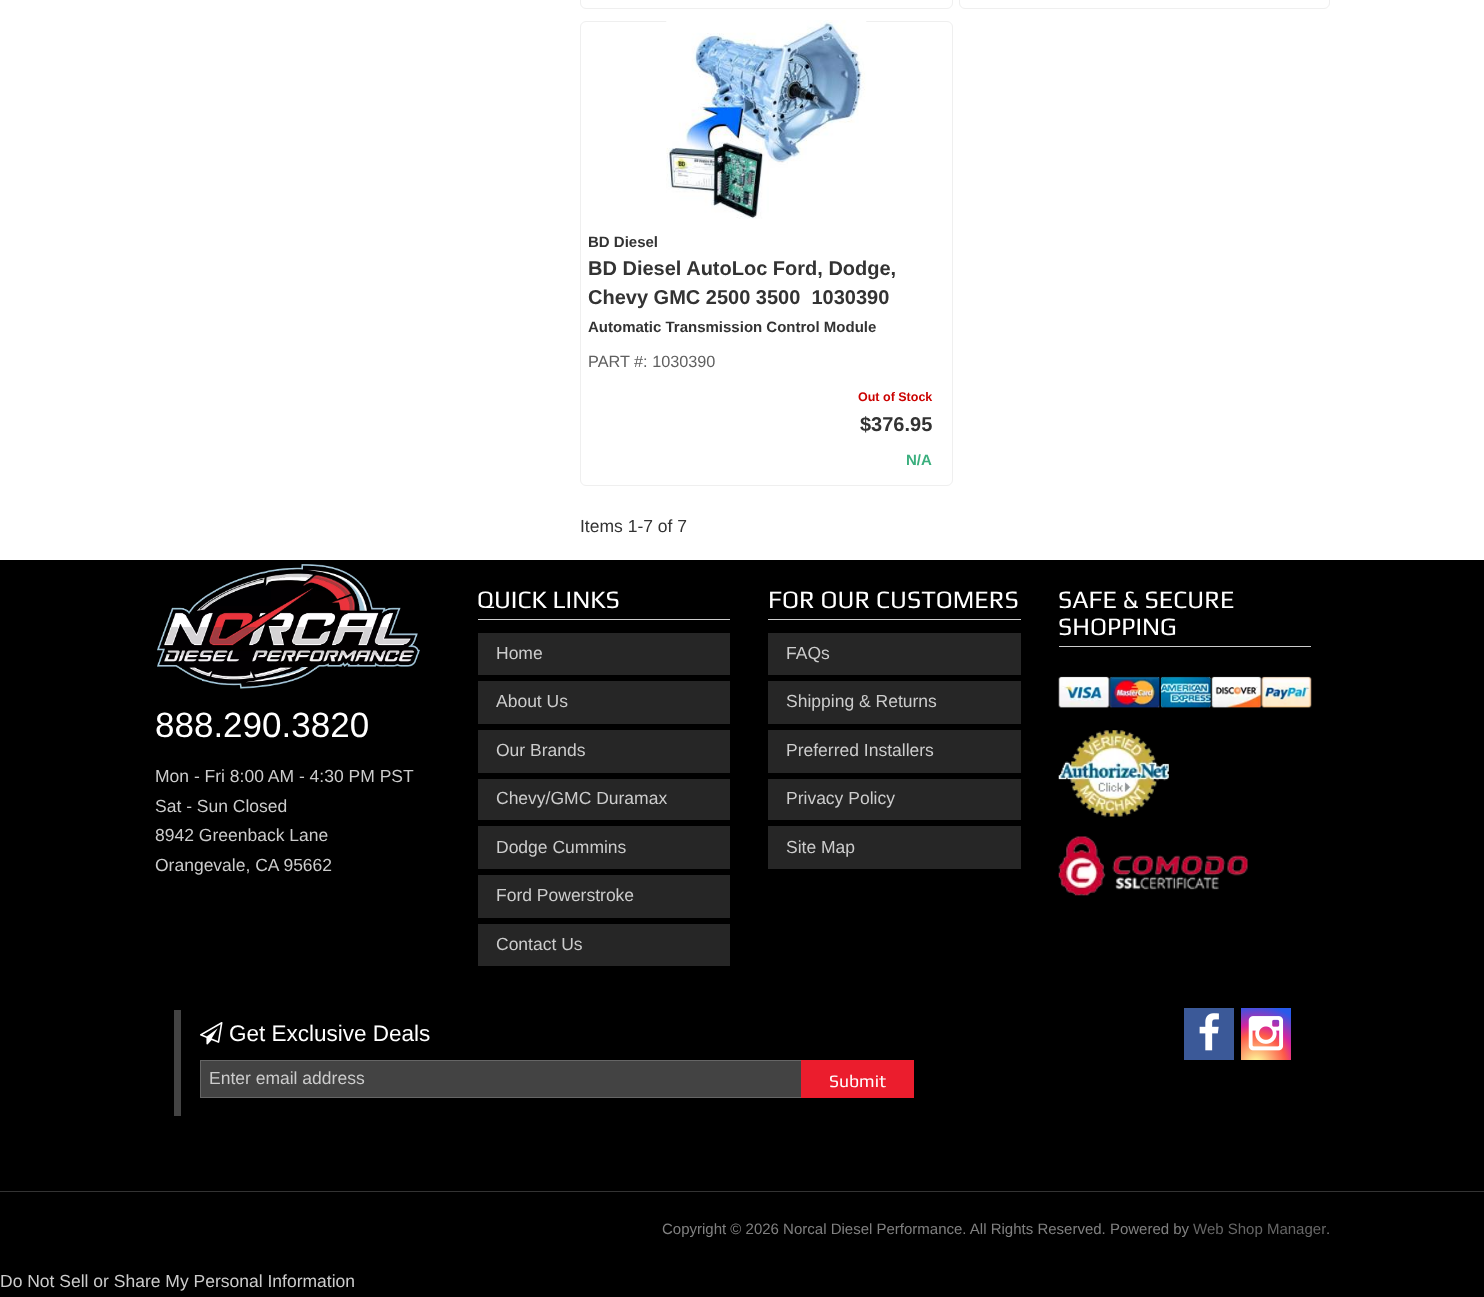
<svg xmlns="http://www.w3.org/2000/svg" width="1484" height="1297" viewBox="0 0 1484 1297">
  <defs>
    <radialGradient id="g1" gradientUnits="userSpaceOnUse" cx="1256" cy="1064" r="66"><stop offset="0" stop-color="#fdf497"/><stop offset="0.05" stop-color="#fdf497"/><stop offset="0.45" stop-color="#fd5949"/><stop offset="0.6" stop-color="#d6249f"/><stop offset="0.9" stop-color="#285aeb"/></radialGradient>
  </defs>
  <rect width="100%" height="100%" fill="#ffffff"/>
  <rect x="580.5" y="-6.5" width="372" height="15" rx="5.5" fill="none" stroke="#efefef"/>
  <rect x="959.5" y="-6.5" width="370" height="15" rx="5.5" fill="none" stroke="#efefef"/>
  <rect x="580.5" y="21.5" width="372" height="464" rx="5.5" fill="none" stroke="#efefef"/>
  <image x="666" y="20" width="201" height="199" href="img1.png"/>
  <text x="588" y="247" font-family="Liberation Sans" font-size="15" font-weight="bold" fill="#333333">BD Diesel</text>
  <text x="588" y="275" font-family="Liberation Sans" font-size="20" font-weight="bold" fill="#333333">BD Diesel AutoLoc Ford, Dodge,</text>
  <text x="588" y="304" font-family="Liberation Sans" font-size="20" font-weight="bold" fill="#333333" xml:space="preserve">Chevy GMC 2500 3500  1030390</text>
  <text x="588" y="332" font-family="Liberation Sans" font-size="15" font-weight="bold" fill="#333333">Automatic Transmission Control Module</text>
  <text x="588" y="367" font-family="Liberation Sans" font-size="16.25" fill="#606060">PART #: 1030390</text>
  <text x="858" y="401" font-family="Liberation Sans" font-size="12.5" font-weight="bold" fill="#cb0201">Out of Stock</text>
  <text x="860" y="431" font-family="Liberation Sans" font-size="20" font-weight="bold" fill="#333333">$376.95</text>
  <text x="906" y="465" font-family="Liberation Sans" font-size="15" font-weight="bold" fill="#3baf7e">N/A</text>
  <text x="580" y="532" font-family="Liberation Sans" font-size="17.5" fill="#333333">Items 1-7 of 7</text>
  <rect x="0" y="560" width="1484" height="737" fill="#000000"/>
  <image x="157" y="564" width="263" height="125" href="img2.png"/>
  <text x="155" y="737" font-family="Liberation Sans" font-size="35" fill="#ffffff">888.290.3820</text>
  <text x="155" y="782" font-family="Liberation Sans" font-size="17.5" fill="#cccccc">Mon - Fri 8:00 AM - 4:30 PM PST</text>
  <text x="155" y="812" font-family="Liberation Sans" font-size="17.5" fill="#cccccc">Sat - Sun Closed</text>
  <text x="155" y="841" font-family="Liberation Sans" font-size="17.5" fill="#cccccc">8942 Greenback Lane</text>
  <text x="155" y="871" font-family="Liberation Sans" font-size="17.5" fill="#cccccc">Orangevale, CA 95662</text>
  <rect x="478" y="619" width="252" height="1" fill="#cccccc"/>
  <text x="477" y="608" font-family="Play" font-size="25" fill="#ffffff">QUICK LINKS</text>
  <rect x="478" y="633" width="252" height="42" fill="#262626"/>
  <text x="496" y="659" font-family="Liberation Sans" font-size="17.5" fill="#cccccc">Home</text>
  <rect x="478" y="681" width="252" height="43" fill="#262626"/>
  <text x="496" y="707" font-family="Liberation Sans" font-size="17.5" fill="#cccccc">About Us</text>
  <rect x="478" y="730" width="252" height="43" fill="#262626"/>
  <text x="496" y="756" font-family="Liberation Sans" font-size="17.5" fill="#cccccc">Our Brands</text>
  <rect x="478" y="779" width="252" height="41" fill="#262626"/>
  <text x="496" y="804" font-family="Liberation Sans" font-size="17.5" fill="#cccccc">Chevy/GMC Duramax</text>
  <rect x="478" y="826" width="252" height="43" fill="#262626"/>
  <text x="496" y="853" font-family="Liberation Sans" font-size="17.5" fill="#cccccc">Dodge Cummins</text>
  <rect x="478" y="875" width="252" height="43" fill="#262626"/>
  <text x="496" y="901" font-family="Liberation Sans" font-size="17.5" fill="#cccccc">Ford Powerstroke</text>
  <rect x="478" y="924" width="252" height="42" fill="#262626"/>
  <text x="496" y="950" font-family="Liberation Sans" font-size="17.5" fill="#cccccc">Contact Us</text>
  <rect x="768" y="619" width="253" height="1" fill="#cccccc"/>
  <text x="768" y="608" font-family="Play" font-size="25" fill="#ffffff">FOR OUR CUSTOMERS</text>
  <rect x="768" y="633" width="253" height="42" fill="#262626"/>
  <text x="786" y="659" font-family="Liberation Sans" font-size="17.5" fill="#cccccc">FAQs</text>
  <rect x="768" y="681" width="253" height="43" fill="#262626"/>
  <text x="786" y="707" font-family="Liberation Sans" font-size="17.5" fill="#cccccc">Shipping &amp; Returns</text>
  <rect x="768" y="730" width="253" height="43" fill="#262626"/>
  <text x="786" y="756" font-family="Liberation Sans" font-size="17.5" fill="#cccccc">Preferred Installers</text>
  <rect x="768" y="779" width="253" height="41" fill="#262626"/>
  <text x="786" y="804" font-family="Liberation Sans" font-size="17.5" fill="#cccccc">Privacy Policy</text>
  <rect x="768" y="826" width="253" height="43" fill="#262626"/>
  <text x="786" y="853" font-family="Liberation Sans" font-size="17.5" fill="#cccccc">Site Map</text>
  <rect x="1059" y="646" width="252" height="1" fill="#cccccc"/>
  <text x="1058" y="608" font-family="Play" font-size="25" fill="#ffffff">SAFE &amp; SECURE</text>
  <text x="1058" y="635" font-family="Play" font-size="25" fill="#ffffff">SHOPPING</text>
  <image x="1058" y="676" width="254" height="32" href="img3.png"/>
  <image x="1058" y="730" width="111" height="87" href="img4.png"/>
  <image x="1058" y="836" width="190" height="60" href="img5.png"/>
  <rect x="174" y="1010" width="7" height="106" fill="#434343"/>
  <image x="200" y="1022" width="23" height="23" href="img6.png"/>
  <text x="229" y="1041" font-family="Liberation Sans" font-size="22.5" fill="#ffffff">Get Exclusive Deals</text>
  <rect x="201" y="1061" width="600" height="36" fill="#434343"/>
  <rect x="200.5" y="1060.5" width="713" height="37" fill="none" stroke="#666666"/>
  <text x="209" y="1084" font-family="Liberation Sans" font-size="17.5" fill="#cccccc">Enter email address</text>
  <rect x="801" y="1060" width="113" height="38" fill="#eb1d2d"/>
  <text x="829" y="1087" font-family="Play" font-size="17.5" fill="#ffffff">Submit</text>
  <rect x="1184" y="1008" width="50" height="52" fill="#3b5998"/>
  <image x="1199" y="1013" width="20" height="38" href="img7.png"/>
  <rect x="1241" y="1008" width="50" height="52" fill="url(#g1)"/>
  <image x="1248" y="1016" width="36" height="35" href="img8.png"/>
  <rect x="0" y="1191" width="1484" height="1" fill="#333333"/>
  <text x="662" y="1234" font-family="Liberation Sans" font-size="15" fill="#808080">Copyright © 2026 Norcal Diesel Performance. All Rights Reserved. Powered by</text>
  <text x="1193" y="1234" font-family="Liberation Sans" font-size="15" fill="#666666">Web Shop Manager</text>
  <text x="1326" y="1234" font-family="Liberation Sans" font-size="15" fill="#808080">.</text>
  <text x="0" y="1287" font-family="Liberation Sans" font-size="17.5" fill="#cccccc">Do Not Sell or Share My Personal Information</text>
</svg>
